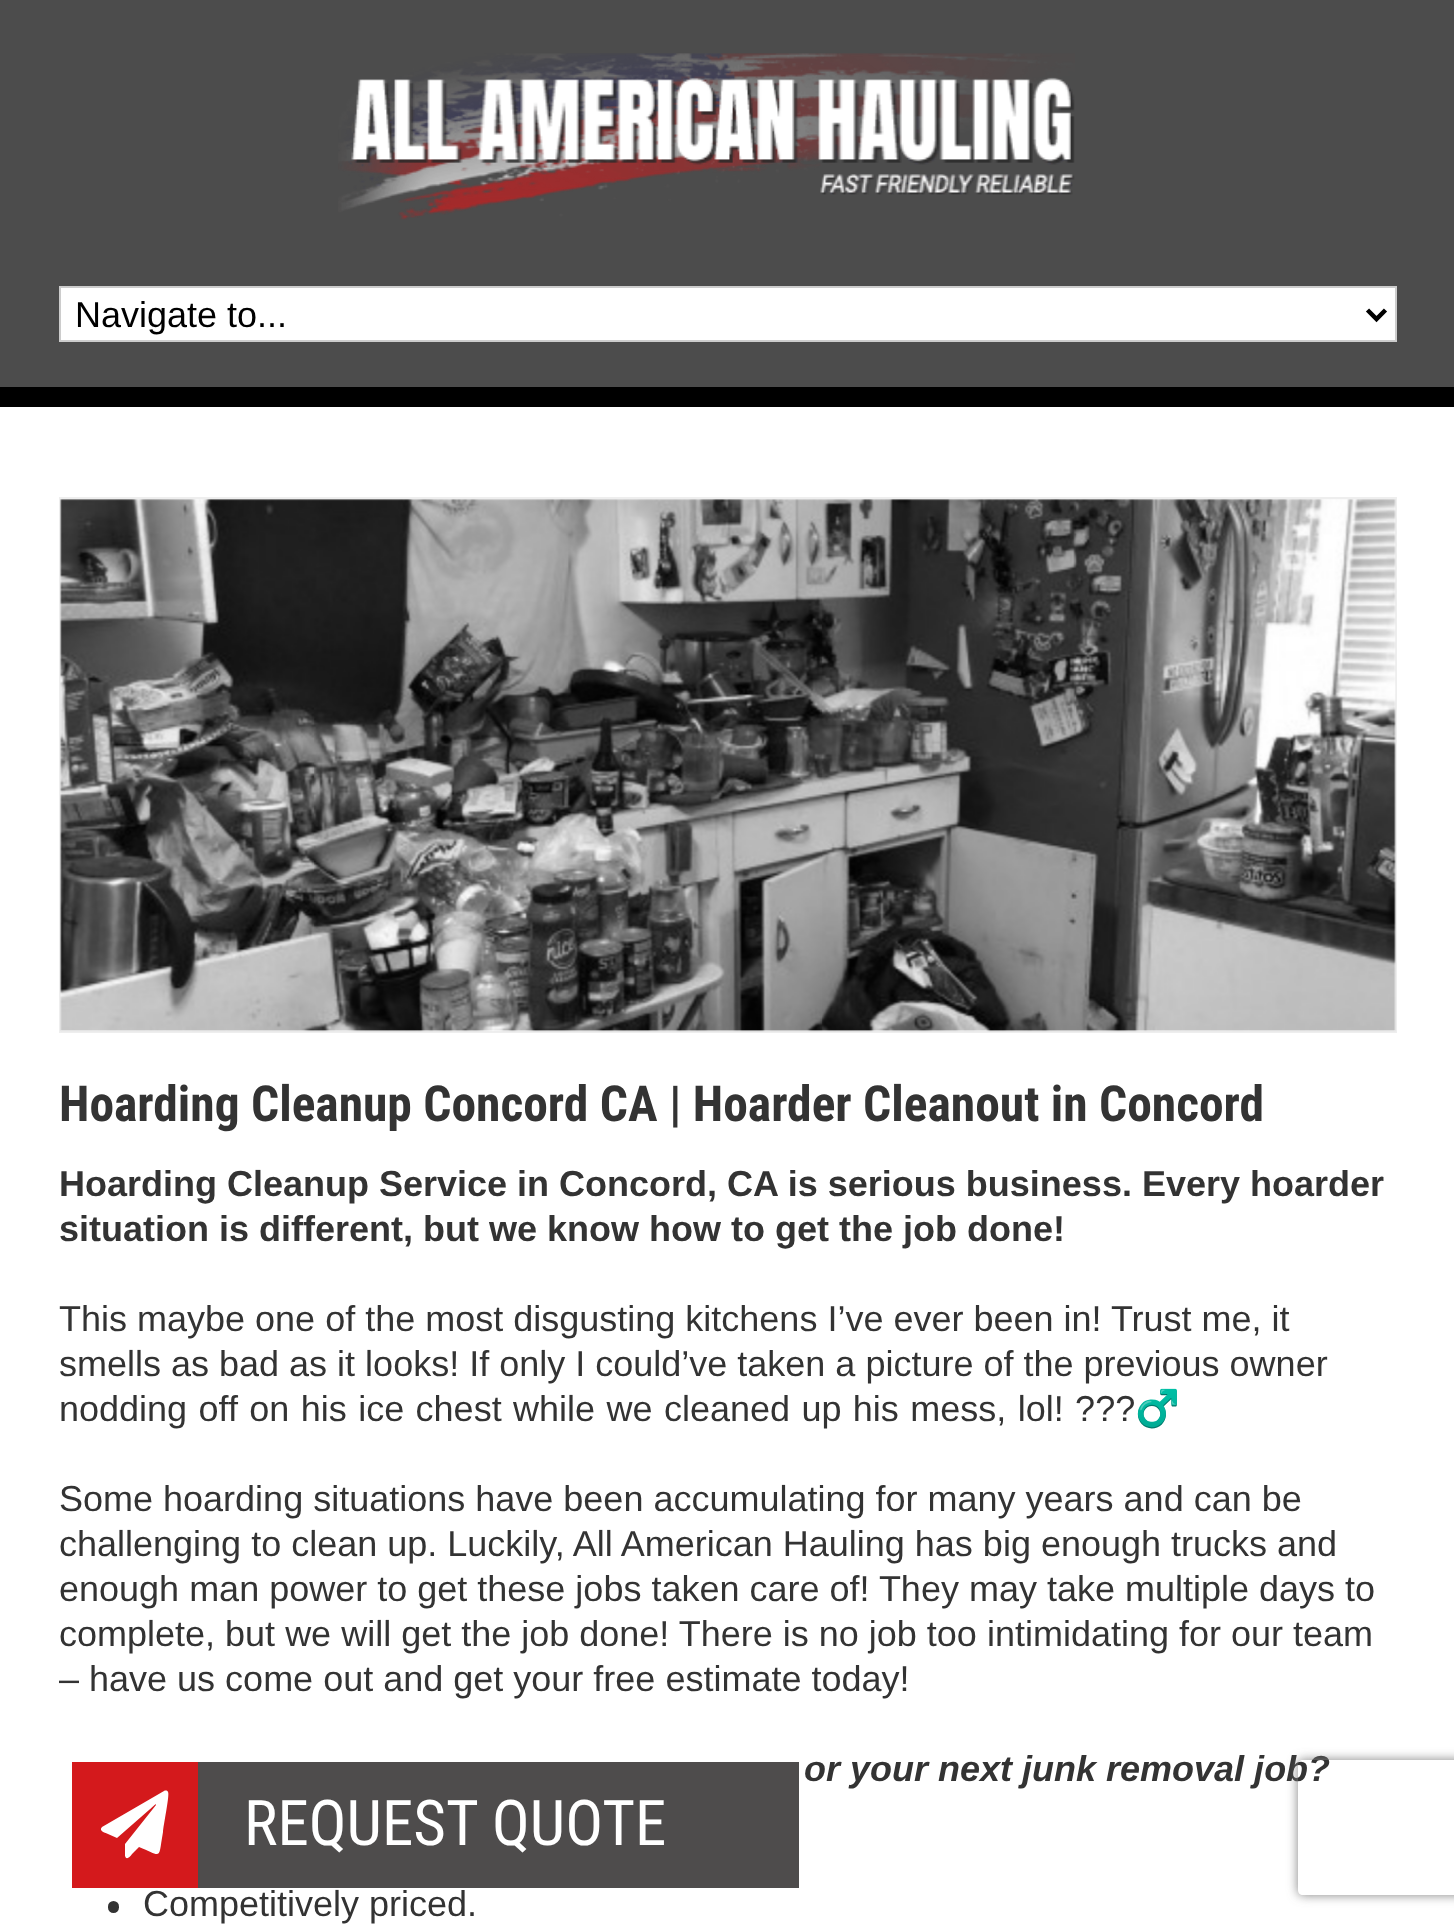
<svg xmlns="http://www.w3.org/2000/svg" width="1454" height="1926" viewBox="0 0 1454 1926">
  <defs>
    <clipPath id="clip1"><path d="M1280 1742H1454V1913H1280ZM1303 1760H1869C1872 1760 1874 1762 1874 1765V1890C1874 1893 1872 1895 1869 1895H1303C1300 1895 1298 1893 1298 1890V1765C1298 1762 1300 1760 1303 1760Z" clip-rule="evenodd"/></clipPath>
    <filter id="blur1" x="-50%" y="-200%" width="200%" height="500%"><feGaussianBlur stdDeviation="5.5"/></filter>
  </defs>
  <rect width="100%" height="100%" fill="#ffffff"/>
  <rect x="0" y="0" width="1454" height="387" fill="#4c4c4c"/>
  <image x="338" y="53" width="737" height="167" href="img1.png"/>
  <rect x="60" y="287" width="1336" height="54" fill="#ffffff" stroke="#cccccc" stroke-width="2"/>
  <path d="M1367.5 310L1376.5 319L1385.5 310" fill="none" stroke="#000000" stroke-width="4.5"/>
  <text x="75" y="327" font-family="Liberation Sans" font-size="36" fill="#000000">Navigate to...</text>
  <rect x="0" y="387" width="1454" height="20" fill="#000000"/>
  <rect x="60" y="498" width="1336" height="534" fill="#f9f9f9" stroke="#eeeeee" stroke-width="2"/>
  <image x="60" y="499" width="1336" height="533" href="img2.png"/>
  <text x="59" y="1121" font-family="Roboto Condensed" font-size="49.5" font-weight="bold" fill="#333333">Hoarding Cleanup Concord CA | Hoarder Cleanout in Concord</text>
  <text x="59" y="1196" font-family="Liberation Sans" font-size="36" font-weight="bold" fill="#333333">Hoarding Cleanup Service in Concord, CA is serious business. Every hoarder</text>
  <text x="59" y="1241" font-family="Liberation Sans" font-size="36" font-weight="bold" fill="#333333">situation is different, but we know how to get the job done!</text>
  <text x="59" y="1331" font-family="Liberation Sans" font-size="36" fill="#333333">This maybe one of the most disgusting kitchens I’ve ever been in! Trust me, it</text>
  <text x="59" y="1376" font-family="Liberation Sans" font-size="36" fill="#333333">smells as bad as it looks! If only I could’ve taken a picture of the previous owner</text>
  <text x="59" y="1421" word-spacing="1.4" font-family="Liberation Sans" font-size="36" fill="#333333">nodding off on his ice chest while we cleaned up his mess, lol! ???‍♂️</text>
  <text x="59" y="1511" font-family="Liberation Sans" font-size="36" fill="#333333">Some hoarding situations have been accumulating for many years and can be</text>
  <text x="59" y="1556" font-family="Liberation Sans" font-size="36" fill="#333333">challenging to clean up. Luckily, All American Hauling has big enough trucks and</text>
  <text x="59" y="1601" font-family="Liberation Sans" font-size="36" fill="#333333">enough man power to get these jobs taken care of! They may take multiple days to</text>
  <text x="59" y="1646" font-family="Liberation Sans" font-size="36" fill="#333333">complete, but we will get the job done! There is no job too intimidating for our team</text>
  <text x="59" y="1691" font-family="Liberation Sans" font-size="36" fill="#333333">– have us come out and get your free estimate today!</text>
  <text x="804" y="1781" font-family="Liberation Sans" font-size="36" font-weight="bold" font-style="italic" fill="#333333">or your next junk removal job?</text>
  <rect x="108" y="1901" width="11" height="12" rx="5.5" fill="#333333"/>
  <text x="143" y="1916" font-family="Liberation Sans" font-size="36" fill="#333333">Competitively priced.</text>
  <rect x="72" y="1762" width="126" height="126" fill="#d4191c"/>
  <path d="M164 1791C166 1790 168 1791 168 1792C170 1794 163 1827 163 1832C158 1860 163 1857 139 1847L133 1853C131 1855 129 1859 126 1858L125 1856V1844L156 1805C156 1803 155 1805 149 1810L117 1838L108 1834C106 1833 98 1831 102 1827Z" fill="#ffffff"/>
  <rect x="198" y="1762" width="601" height="126" fill="#4e4c4c"/>
  <text x="244" y="1845" font-family="Roboto Condensed" font-size="63" fill="#ffffff">REQUEST QUOTE</text>
  <g clip-path="url(#clip1)">
    <rect x="1298" y="1760" width="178" height="135" rx="5" fill="#808080" filter="url(#blur1)"/>
  </g>
</svg>
